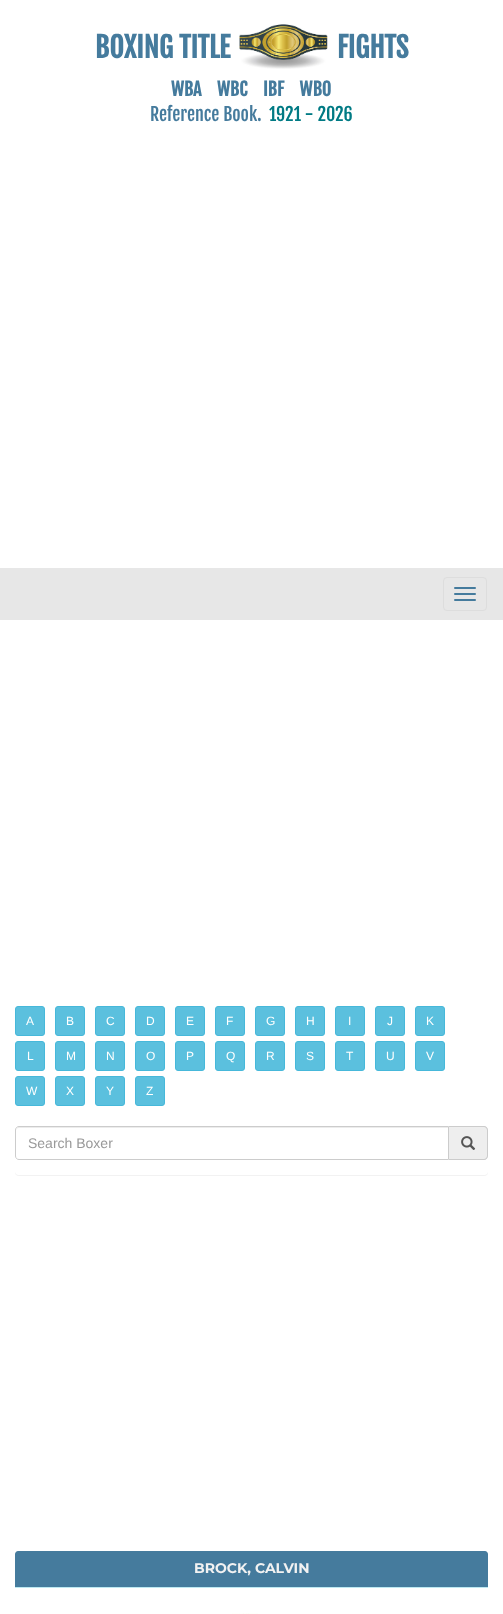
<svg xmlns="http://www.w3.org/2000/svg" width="503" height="1614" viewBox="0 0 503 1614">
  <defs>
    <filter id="blur1" x="-50%" y="-200%" width="200%" height="500%"><feGaussianBlur stdDeviation="0.5"/></filter>
  </defs>
  <rect width="100%" height="100%" fill="#ffffff"/>
  <text x="95" y="58" font-family="Fjalla One" font-size="28" font-weight="bold" fill="#457b9d">BOXING TITLE</text>
  <image x="239" y="24" width="89" height="45" href="img1.png"/>
  <text x="337" y="58" font-family="Fjalla One" font-size="28" font-weight="bold" fill="#457b9d">FIGHTS</text>
  <text x="171" y="96" font-family="Fjalla One" font-size="18" font-weight="bold" fill="#457b9d" xml:space="preserve">WBA    WBC    IBF    WBO</text>
  <text x="150" y="121" font-family="Fjalla One" font-size="18" fill="#457b9d">Reference Book.</text>
  <text x="269" y="121" font-family="Fjalla One" font-size="18" fill="#007a84">1921 - 2026</text>
  <rect x="0" y="568" width="503" height="52" fill="#e7e7e7"/>
  <rect x="443.5" y="577.5" width="43" height="33" rx="3.5" fill="none" stroke="#dddddd"/>
  <rect x="454" y="587" width="22" height="2" rx="1" fill="#457b9d"/>
  <rect x="454" y="593" width="22" height="2" rx="1" fill="#457b9d"/>
  <rect x="454" y="599" width="22" height="2" rx="1" fill="#457b9d"/>
  <rect x="15.5" y="1006.5" width="29" height="29" rx="2.5" fill="#5bc0de" stroke="#46b8da"/>
  <text x="26" y="1025" font-family="Liberation Sans" font-size="12" fill="#ffffff">A</text>
  <rect x="55.5" y="1006.5" width="29" height="29" rx="2.5" fill="#5bc0de" stroke="#46b8da"/>
  <text x="66" y="1025" font-family="Liberation Sans" font-size="12" fill="#ffffff">B</text>
  <rect x="95.5" y="1006.5" width="29" height="29" rx="2.5" fill="#5bc0de" stroke="#46b8da"/>
  <text x="106" y="1025" font-family="Liberation Sans" font-size="12" fill="#ffffff">C</text>
  <rect x="135.5" y="1006.5" width="29" height="29" rx="2.5" fill="#5bc0de" stroke="#46b8da"/>
  <text x="146" y="1025" font-family="Liberation Sans" font-size="12" fill="#ffffff">D</text>
  <rect x="175.5" y="1006.5" width="29" height="29" rx="2.5" fill="#5bc0de" stroke="#46b8da"/>
  <text x="186" y="1025" font-family="Liberation Sans" font-size="12" fill="#ffffff">E</text>
  <rect x="215.5" y="1006.5" width="29" height="29" rx="2.5" fill="#5bc0de" stroke="#46b8da"/>
  <text x="226" y="1025" font-family="Liberation Sans" font-size="12" fill="#ffffff">F</text>
  <rect x="255.5" y="1006.5" width="29" height="29" rx="2.5" fill="#5bc0de" stroke="#46b8da"/>
  <text x="266" y="1025" font-family="Liberation Sans" font-size="12" fill="#ffffff">G</text>
  <rect x="295.5" y="1006.5" width="29" height="29" rx="2.5" fill="#5bc0de" stroke="#46b8da"/>
  <text x="306" y="1025" font-family="Liberation Sans" font-size="12" fill="#ffffff">H</text>
  <rect x="335.5" y="1006.5" width="29" height="29" rx="2.5" fill="#5bc0de" stroke="#46b8da"/>
  <text x="348" y="1025" font-family="Liberation Sans" font-size="12" fill="#ffffff">I</text>
  <rect x="375.5" y="1006.5" width="29" height="29" rx="2.5" fill="#5bc0de" stroke="#46b8da"/>
  <text x="387" y="1025" font-family="Liberation Sans" font-size="12" fill="#ffffff">J</text>
  <rect x="415.5" y="1006.5" width="29" height="29" rx="2.5" fill="#5bc0de" stroke="#46b8da"/>
  <text x="426" y="1025" font-family="Liberation Sans" font-size="12" fill="#ffffff">K</text>
  <rect x="15.5" y="1041.5" width="29" height="29" rx="2.5" fill="#5bc0de" stroke="#46b8da"/>
  <text x="27" y="1060" font-family="Liberation Sans" font-size="12" fill="#ffffff">L</text>
  <rect x="55.5" y="1041.5" width="29" height="29" rx="2.5" fill="#5bc0de" stroke="#46b8da"/>
  <text x="66" y="1060" font-family="Liberation Sans" font-size="12" fill="#ffffff">M</text>
  <rect x="95.5" y="1041.5" width="29" height="29" rx="2.5" fill="#5bc0de" stroke="#46b8da"/>
  <text x="106" y="1060" font-family="Liberation Sans" font-size="12" fill="#ffffff">N</text>
  <rect x="135.5" y="1041.5" width="29" height="29" rx="2.5" fill="#5bc0de" stroke="#46b8da"/>
  <text x="146" y="1060" font-family="Liberation Sans" font-size="12" fill="#ffffff">O</text>
  <rect x="175.5" y="1041.5" width="29" height="29" rx="2.5" fill="#5bc0de" stroke="#46b8da"/>
  <text x="186" y="1060" font-family="Liberation Sans" font-size="12" fill="#ffffff">P</text>
  <rect x="215.5" y="1041.5" width="29" height="29" rx="2.5" fill="#5bc0de" stroke="#46b8da"/>
  <text x="226" y="1060" font-family="Liberation Sans" font-size="12" fill="#ffffff">Q</text>
  <rect x="255.5" y="1041.5" width="29" height="29" rx="2.5" fill="#5bc0de" stroke="#46b8da"/>
  <text x="266" y="1060" font-family="Liberation Sans" font-size="12" fill="#ffffff">R</text>
  <rect x="295.5" y="1041.5" width="29" height="29" rx="2.5" fill="#5bc0de" stroke="#46b8da"/>
  <text x="306" y="1060" font-family="Liberation Sans" font-size="12" fill="#ffffff">S</text>
  <rect x="335.5" y="1041.5" width="29" height="29" rx="2.5" fill="#5bc0de" stroke="#46b8da"/>
  <text x="346" y="1060" font-family="Liberation Sans" font-size="12" fill="#ffffff">T</text>
  <rect x="375.5" y="1041.5" width="29" height="29" rx="2.5" fill="#5bc0de" stroke="#46b8da"/>
  <text x="386" y="1060" font-family="Liberation Sans" font-size="12" fill="#ffffff">U</text>
  <rect x="415.5" y="1041.5" width="29" height="29" rx="2.5" fill="#5bc0de" stroke="#46b8da"/>
  <text x="426" y="1060" font-family="Liberation Sans" font-size="12" fill="#ffffff">V</text>
  <rect x="15.5" y="1076.5" width="29" height="29" rx="2.5" fill="#5bc0de" stroke="#46b8da"/>
  <text x="26" y="1095" font-family="Liberation Sans" font-size="12" fill="#ffffff">W</text>
  <rect x="55.5" y="1076.5" width="29" height="29" rx="2.5" fill="#5bc0de" stroke="#46b8da"/>
  <text x="66" y="1095" font-family="Liberation Sans" font-size="12" fill="#ffffff">X</text>
  <rect x="95.5" y="1076.5" width="29" height="29" rx="2.5" fill="#5bc0de" stroke="#46b8da"/>
  <text x="106" y="1095" font-family="Liberation Sans" font-size="12" fill="#ffffff">Y</text>
  <rect x="135.5" y="1076.5" width="29" height="29" rx="2.5" fill="#5bc0de" stroke="#46b8da"/>
  <text x="146" y="1095" font-family="Liberation Sans" font-size="12" fill="#ffffff">Z</text>
  <rect x="15" y="1127" width="473" height="49" rx="4" fill="#000000" fill-opacity="0.05" filter="url(#blur1)"/>
  <rect x="15" y="1126" width="473" height="49" rx="4" fill="#ffffff"/>
  <path d="M19 1128H448V1127H19C17 1127 16 1129 16 1131C16 1129 17 1128 19 1128Z" fill="#ececec"/>
  <path d="M19 1126.5H448.5V1159.5H19C17 1159.5 15.5 1158 15.5 1156V1130C15.5 1128 17 1126.5 19 1126.5Z" fill="none" stroke="#cccccc"/>
  <text x="28" y="1148" font-family="Liberation Sans" font-size="14" fill="#999999">Search Boxer</text>
  <path d="M449 1126H484C486 1126 488 1128 488 1130V1156C488 1158 486 1160 484 1160H449Z" fill="#eeeeee"/>
  <path d="M449 1126H484C486 1126 488 1128 488 1130V1156C488 1158 486 1160 484 1160H449ZM449 1127H484C485.5 1127 487 1128.5 487 1130V1156C487 1157.5 485.5 1159 484 1159H449Z" fill="#cccccc" fill-rule="evenodd"/>
  <image x="461" y="1136" width="15" height="14" href="img2.png"/>
  <path d="M18 1551H485C486.5 1551 488 1552.5 488 1554V1588H15V1554C15 1552.5 16.5 1551 18 1551Z" fill="#457b9d"/>
  <rect x="15" y="1587" width="473" height="1" fill="#bce8f1"/>
  <text x="194" y="1573" font-family="Montserrat" font-size="14" font-weight="bold" fill="#f2f2f2">BROCK, CALVIN</text>
  <image x="232" y="1613" width="26" height="1" href="img3.png"/>
</svg>
